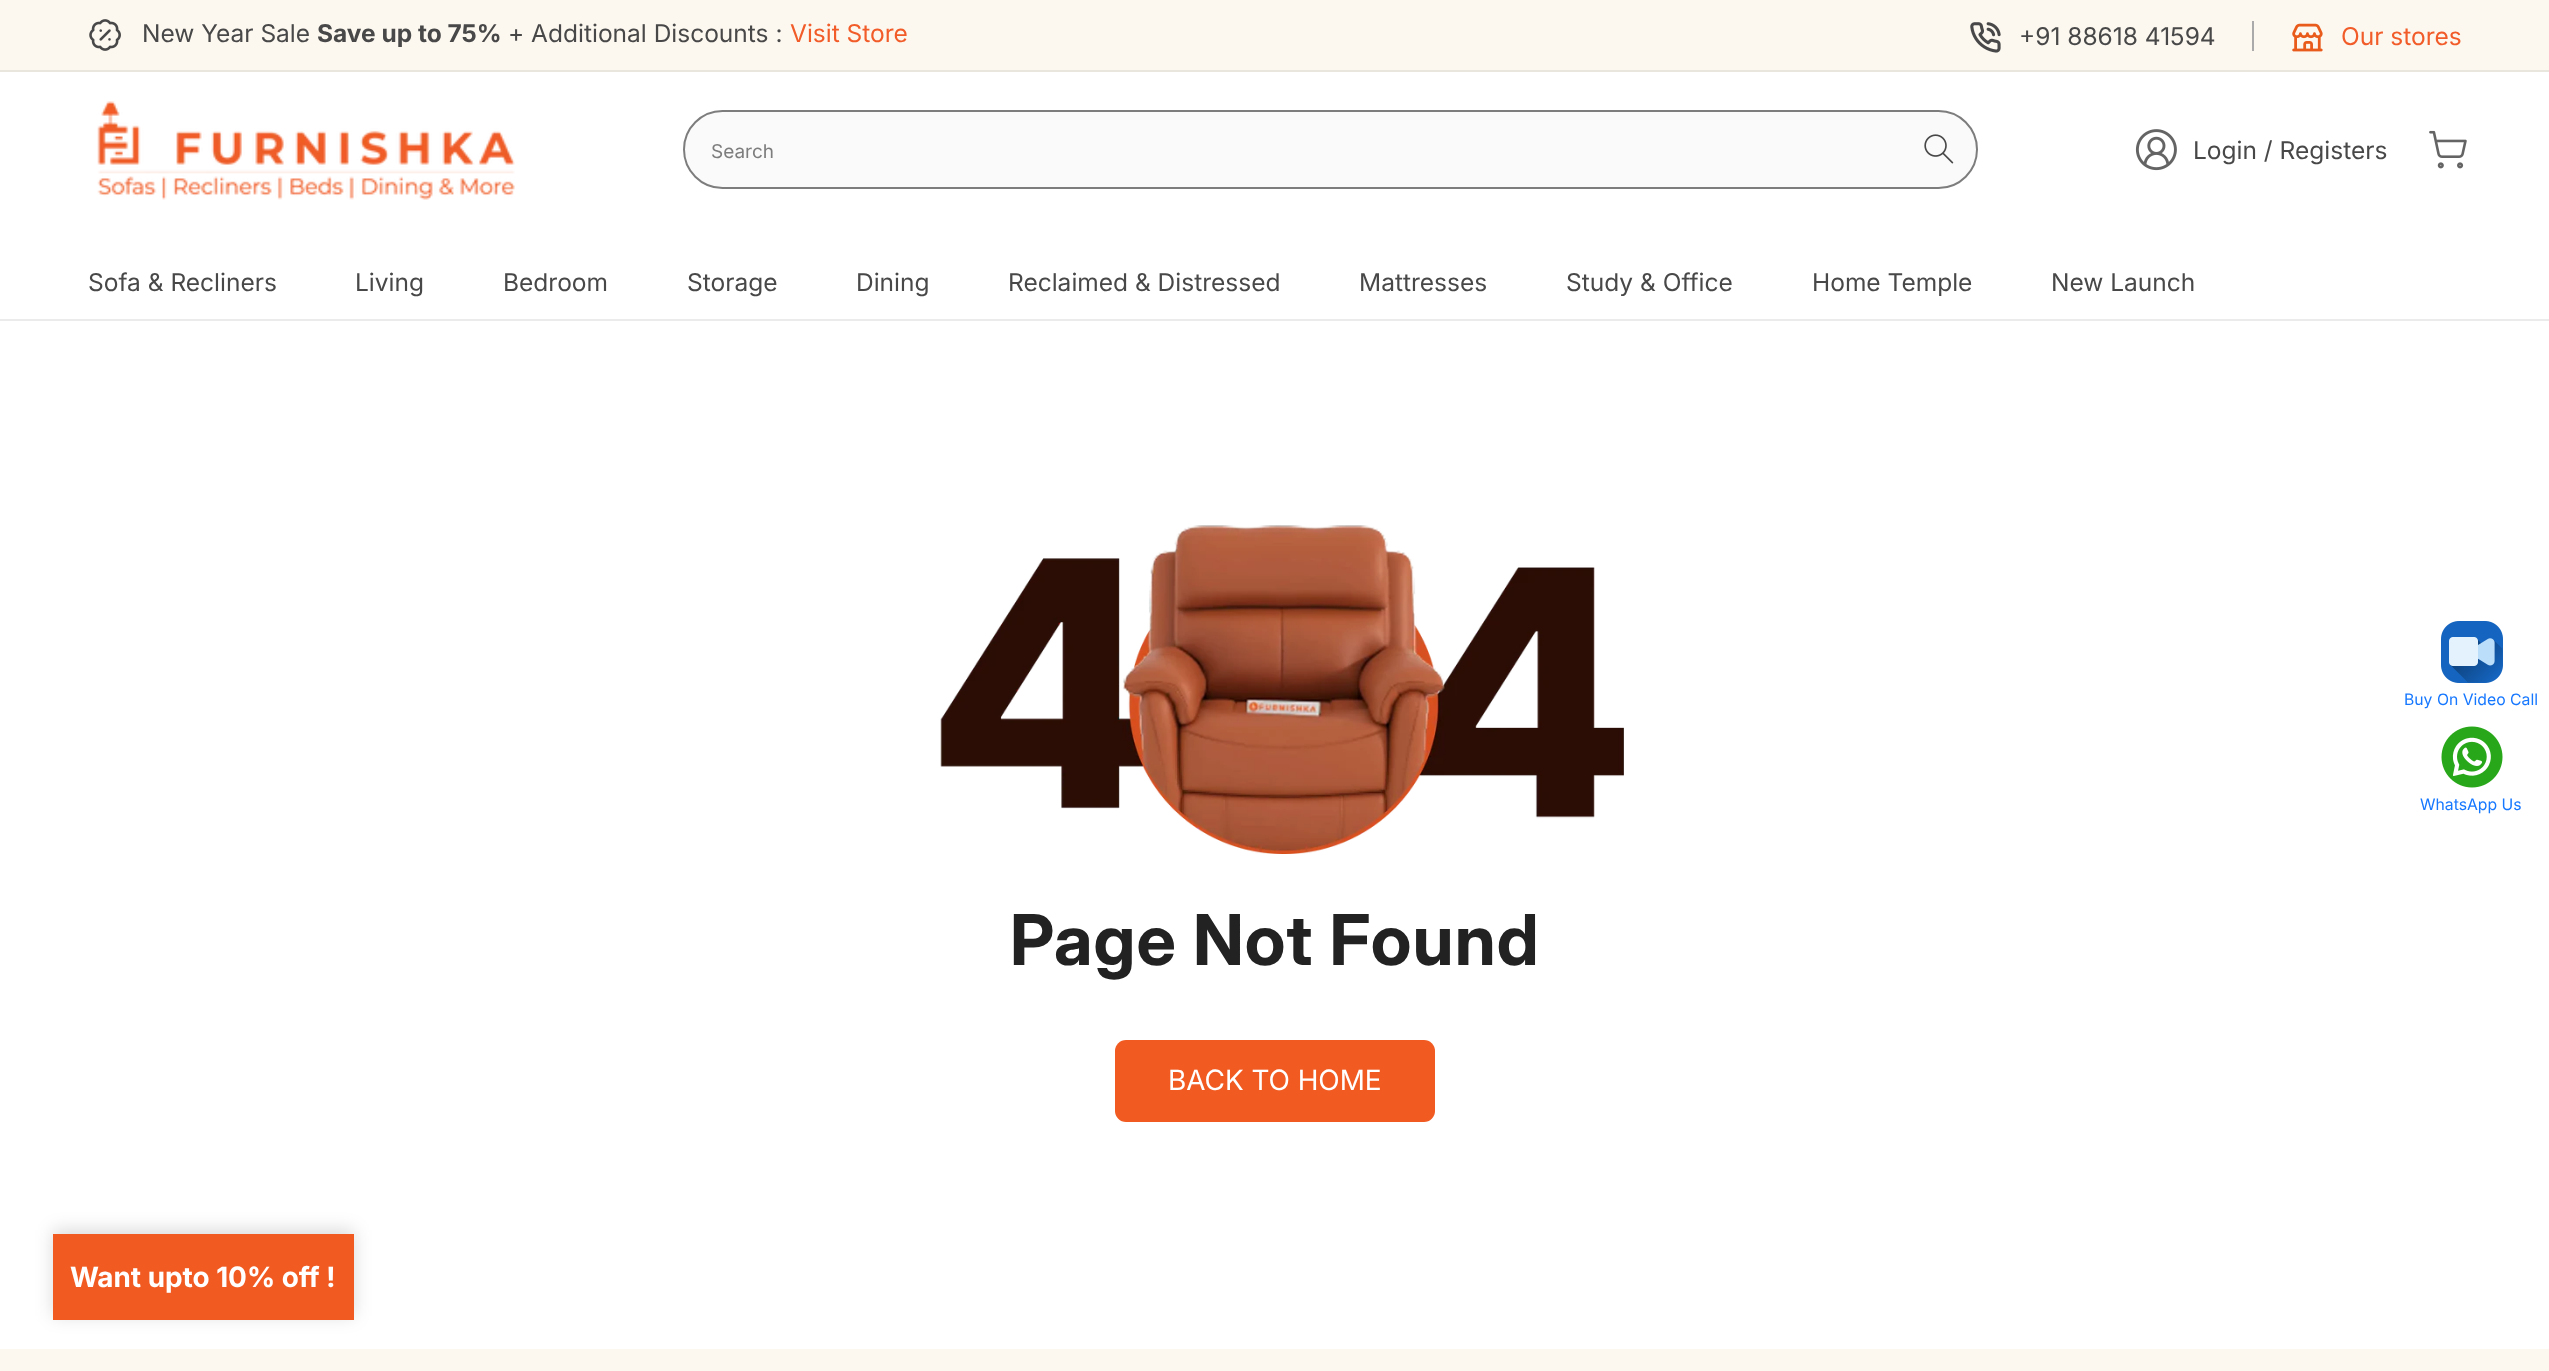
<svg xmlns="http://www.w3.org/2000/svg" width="2549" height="1371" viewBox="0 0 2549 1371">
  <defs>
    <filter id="blur1" x="-50%" y="-200%" width="200%" height="500%"><feGaussianBlur stdDeviation="9"/></filter>
  </defs>
  <rect width="100%" height="100%" fill="#ffffff"/>
  <rect x="0" y="0" width="2549" height="70" fill="#fcf8f0"/>
  <rect x="0" y="70" width="2549" height="2" fill="#e9e6de"/>
  <image x="89" y="19" width="32" height="32" href="img1.png"/>
  <text x="142" y="42" font-family="'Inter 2'" font-size="24.5" fill="#484848">New Year Sale</text>
  <text x="317" y="42" font-family="'Inter 2'" font-size="24.5" font-weight="bold" fill="#484848">Save up to 75%</text>
  <text x="508" y="42" font-family="'Inter 2'" font-size="24.5" fill="#484848">+ Additional Discounts :</text>
  <text x="790" y="42" font-family="'Inter 2'" font-size="24.5" fill="#f15c29">Visit Store</text>
  <image x="1970" y="22" width="31" height="31" href="img2.png"/>
  <text x="2019" y="45" font-family="'Inter 2'" font-size="24.5" fill="#484848">+91 88618 41594</text>
  <rect x="2252" y="21" width="2" height="30" fill="#aaaaaa"/>
  <image x="2292" y="23" width="31" height="29" href="img3.png"/>
  <text x="2341" y="45" font-family="'Inter 2'" font-size="24.5" fill="#f15c29">Our stores</text>
  <rect x="0" y="319" width="2549" height="2" fill="#ebebeb"/>
  <image x="97" y="101" width="418" height="99" href="img4.png"/>
  <rect x="684" y="111" width="1293" height="77" rx="38.5" fill="#fafafa" stroke="#7d7d7d" stroke-width="2"/>
  <text x="711" y="158" font-family="'Inter 2'" font-size="19" fill="#7d7d7d">Search</text>
  <image x="1924" y="134" width="30" height="30" href="img5.png"/>
  <image x="2135" y="129" width="42" height="42" href="img6.png"/>
  <text x="2193" y="159" font-family="'Inter 2'" font-size="24.5" fill="#484848">Login / Registers</text>
  <image x="2429" y="130" width="38" height="39" href="img7.png"/>
  <text x="88" y="291" font-family="'Inter 2'" font-size="24.5" fill="#484848">Sofa &amp; Recliners</text>
  <text x="355" y="291" font-family="'Inter 2'" font-size="24.5" fill="#484848">Living</text>
  <text x="503" y="291" font-family="'Inter 2'" font-size="24.5" fill="#484848">Bedroom</text>
  <text x="687" y="291" font-family="'Inter 2'" font-size="24.5" fill="#484848">Storage</text>
  <text x="856" y="291" font-family="'Inter 2'" font-size="24.5" fill="#484848">Dining</text>
  <text x="1008" y="291" font-family="'Inter 2'" font-size="24.5" fill="#484848">Reclaimed &amp; Distressed</text>
  <text x="1359" y="291" font-family="'Inter 2'" font-size="24.5" fill="#484848">Mattresses</text>
  <text x="1566" y="291" font-family="'Inter 2'" font-size="24.5" fill="#484848">Study &amp; Office</text>
  <text x="1812" y="291" font-family="'Inter 2'" font-size="24.5" fill="#484848">Home Temple</text>
  <text x="2051" y="291" font-family="'Inter 2'" font-size="24.5" fill="#484848">New Launch</text>
  <image x="2441" y="621" width="62" height="62" href="img8.png"/>
  <text x="2404" y="705" font-family="'Inter 2'" font-size="15.75" fill="#1677ff">Buy On Video Call</text>
  <image x="2441" y="726" width="62" height="62" href="img9.png"/>
  <text x="2420" y="810" font-family="'Inter 2'" font-size="15.75" fill="#1677ff">WhatsApp Us</text>
  <image x="940" y="525" width="684" height="329" href="img10.png"/>
  <text x="1010" y="965" font-family="Inter" font-size="70" font-weight="bold" letter-spacing="1.1" fill="#222222">Page Not Found</text>
  <rect x="1115" y="1040" width="320" height="82" rx="11" fill="#f15b22"/>
  <text x="1168" y="1090" font-family="Inter" font-size="28" fill="#ffffff">BACK TO HOME</text>
  <rect x="53" y="1230" width="301" height="86" fill="#000000" fill-opacity="0.15" filter="url(#blur1)"/>
  <rect x="53" y="1234" width="301" height="86" fill="#f15b22"/>
  <text x="70" y="1287" font-family="'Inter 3'" font-size="28" font-weight="bold" fill="#ffffff">Want upto 10% off !</text>
  <rect x="0" y="1349" width="2549" height="22" fill="#fcf8f0"/>
</svg>
